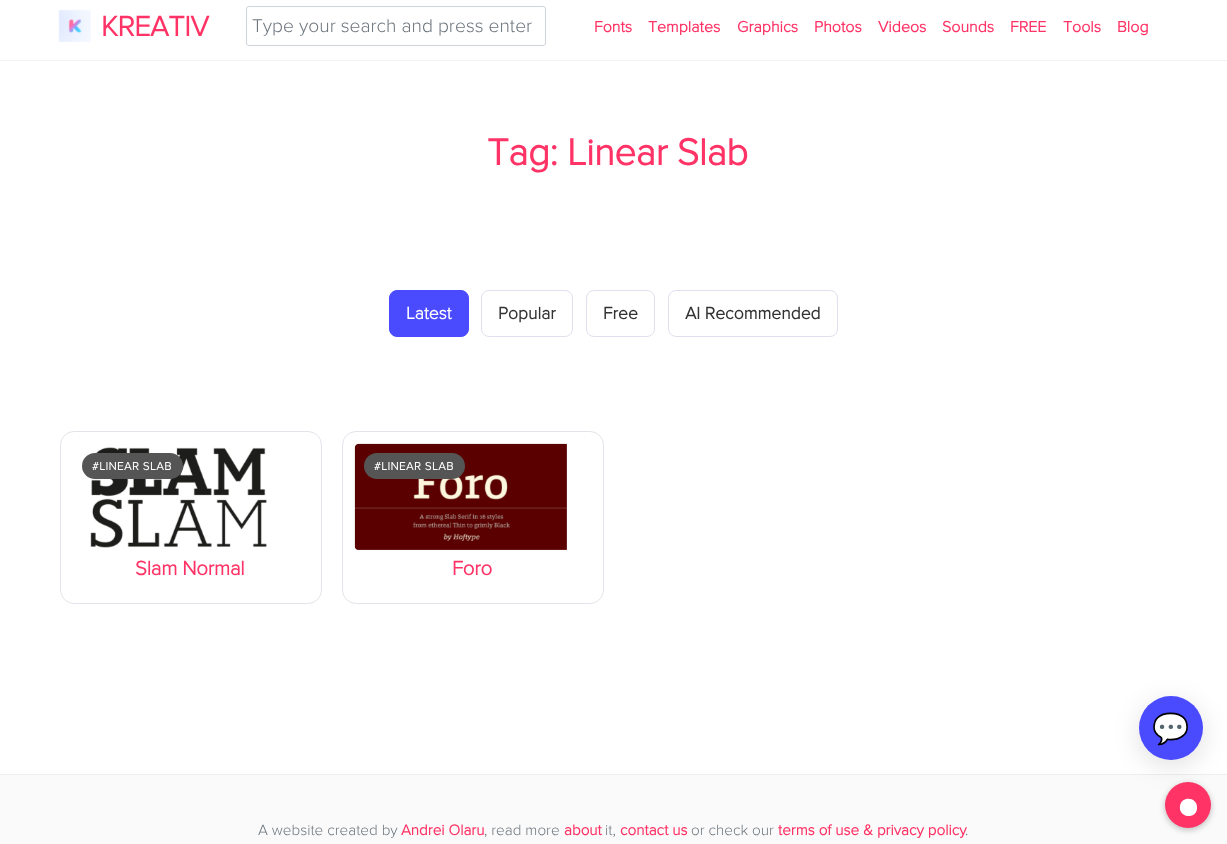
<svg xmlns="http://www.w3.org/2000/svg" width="1227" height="844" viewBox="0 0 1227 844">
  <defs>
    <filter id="blur1" x="-50%" y="-200%" width="200%" height="500%"><feGaussianBlur stdDeviation="3"/></filter>
    <filter id="blur2" x="-50%" y="-200%" width="200%" height="500%"><feGaussianBlur stdDeviation="13"/></filter>
  </defs>
  <rect width="100%" height="100%" fill="#ffffff"/>
  <rect x="0" y="60" width="1227" height="1" fill="#f2f2f2"/>
  <image x="58" y="9" width="33" height="33" href="img1.png"/>
  <text x="101" y="36" font-family="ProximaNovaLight" font-size="29" font-weight="bold" letter-spacing="-0.5" fill="#ff3366">KREATIV</text>
  <rect x="246.5" y="6.5" width="299" height="39" rx="2.5" fill="none" stroke="#ced4da"/>
  <text x="252" y="32" font-family="ProximaNovaLight" font-size="19.25" font-weight="300" fill="#6c757d">Type your search and press enter</text>
  <text x="594" y="32" font-family="ProximaNovaLight" font-size="16" font-weight="bold" fill="#ff3366">Fonts</text>
  <text x="648" y="32" font-family="ProximaNovaLight" font-size="16" font-weight="bold" fill="#ff3366">Templates</text>
  <text x="737" y="32" font-family="ProximaNovaLight" font-size="16" font-weight="bold" fill="#ff3366">Graphics</text>
  <text x="814" y="32" font-family="ProximaNovaLight" font-size="16" font-weight="bold" fill="#ff3366">Photos</text>
  <text x="878" y="32" font-family="ProximaNovaLight" font-size="16" font-weight="bold" fill="#ff3366">Videos</text>
  <text x="942" y="32" font-family="ProximaNovaLight" font-size="16" font-weight="bold" fill="#ff3366">Sounds</text>
  <text x="1010" y="32" font-family="ProximaNovaLight" font-size="16" font-weight="bold" fill="#ff3366">FREE</text>
  <text x="1063" y="32" font-family="ProximaNovaLight" font-size="16" font-weight="bold" fill="#ff3366">Tools</text>
  <text x="1117" y="32" font-family="ProximaNovaLight" font-size="16" font-weight="bold" fill="#ff3366">Blog</text>
  <text x="487" y="165" font-family="ProximaNovaLight" font-size="38.5" font-weight="bold" letter-spacing="-0.4" fill="#ff3366">Tag: Linear Slab</text>
  <rect x="389.5" y="290.5" width="79" height="46" rx="7.5" fill="#4a4aff" stroke="#4a4aff"/>
  <text x="406" y="319" font-family="ProximaNovaLight" font-size="17.5" font-weight="bold" fill="#ffffff">Latest</text>
  <rect x="481.5" y="290.5" width="91" height="46" rx="7.5" fill="none" stroke="#dfe2ee"/>
  <text x="498" y="319" font-family="ProximaNovaLight" font-size="17.5" font-weight="bold" fill="#333333">Popular</text>
  <rect x="586.5" y="290.5" width="68" height="46" rx="7.5" fill="none" stroke="#dfe2ee"/>
  <text x="603" y="319" font-family="ProximaNovaLight" font-size="17.5" font-weight="bold" fill="#333333">Free</text>
  <rect x="668.5" y="290.5" width="169" height="46" rx="7.5" fill="none" stroke="#dfe2ee"/>
  <text x="685" y="319" font-family="ProximaNovaLight" font-size="17.5" font-weight="bold" fill="#333333">AI Recommended</text>
  <rect x="60.5" y="431.5" width="261" height="172" rx="13.5" fill="none" stroke="#e2e4ea"/>
  <image x="90" y="447" width="177" height="101" href="img2.png"/>
  <rect x="82" y="453" width="101" height="26" rx="13" fill="#555555"/>
  <text x="92" y="470" font-family="ProximaNovaLight" font-size="11.5" font-weight="bold" letter-spacing="0.5" fill="#ffffff">#LINEAR SLAB</text>
  <text x="135" y="575" font-family="ProximaNovaLight" font-size="20.5" font-weight="bold" letter-spacing="-0.25" fill="#ff3366">Slam Normal</text>
  <rect x="342.5" y="431.5" width="261" height="172" rx="13.5" fill="none" stroke="#e2e4ea"/>
  <image x="354" y="443" width="213" height="107" href="img3.png"/>
  <rect x="364" y="453" width="101" height="26" rx="13" fill="#555555"/>
  <text x="374" y="470" font-family="ProximaNovaLight" font-size="11.5" font-weight="bold" letter-spacing="0.5" fill="#ffffff">#LINEAR SLAB</text>
  <text x="452" y="575" font-family="ProximaNovaLight" font-size="20.5" font-weight="bold" letter-spacing="-0.25" fill="#ff3366">Foro</text>
  <rect x="0" y="775" width="1227" height="69" fill="#fafafa"/>
  <rect x="0" y="774" width="1227" height="1" fill="#eeeeee"/>
  <rect x="1165" y="784" width="46" height="46" rx="23" fill="#000000" fill-opacity="0.25" filter="url(#blur1)"/>
  <circle cx="1188" cy="805" r="23" fill="#ff3366"/>
  <path d="M1197 808C1197 820 1178 818 1180 806C1181.5 795 1198 797 1197 808Z" fill="#ffffff"/>
  <rect x="1139" y="702" width="64" height="64" rx="32" fill="#000000" fill-opacity="0.12" filter="url(#blur2)"/>
  <circle cx="1171" cy="728" r="32" fill="#4a4aff"/>
  <text x="1152" y="739" font-family="Noto Color Emoji" font-size="30" fill="#ffffff">💬</text>
  <text x="258" y="835" font-family="ProximaNovaLight" font-size="15.25" font-weight="300" fill="#6c757d">A website created by</text>
  <text x="401" y="835" font-family="ProximaNovaLight" font-size="15.25" font-weight="bold" fill="#ff3366">Andrei Olaru</text>
  <text x="484" y="835" font-family="ProximaNovaLight" font-size="15.25" font-weight="300" fill="#6c757d">, read more</text>
  <text x="564" y="835" font-family="ProximaNovaLight" font-size="15.25" font-weight="bold" fill="#ff3366">about</text>
  <text x="605" y="835" font-family="ProximaNovaLight" font-size="15.25" font-weight="300" fill="#6c757d">it,</text>
  <text x="620" y="835" font-family="ProximaNovaLight" font-size="15.25" font-weight="bold" fill="#ff3366">contact us</text>
  <text x="691" y="835" font-family="ProximaNovaLight" font-size="15.25" font-weight="300" fill="#6c757d">or check our</text>
  <text x="778" y="835" font-family="ProximaNovaLight" font-size="15.25" font-weight="bold" fill="#ff3366">terms of use &amp; privacy policy</text>
  <text x="965" y="835" font-family="ProximaNovaLight" font-size="15.25" font-weight="300" fill="#6c757d">.</text>
</svg>
